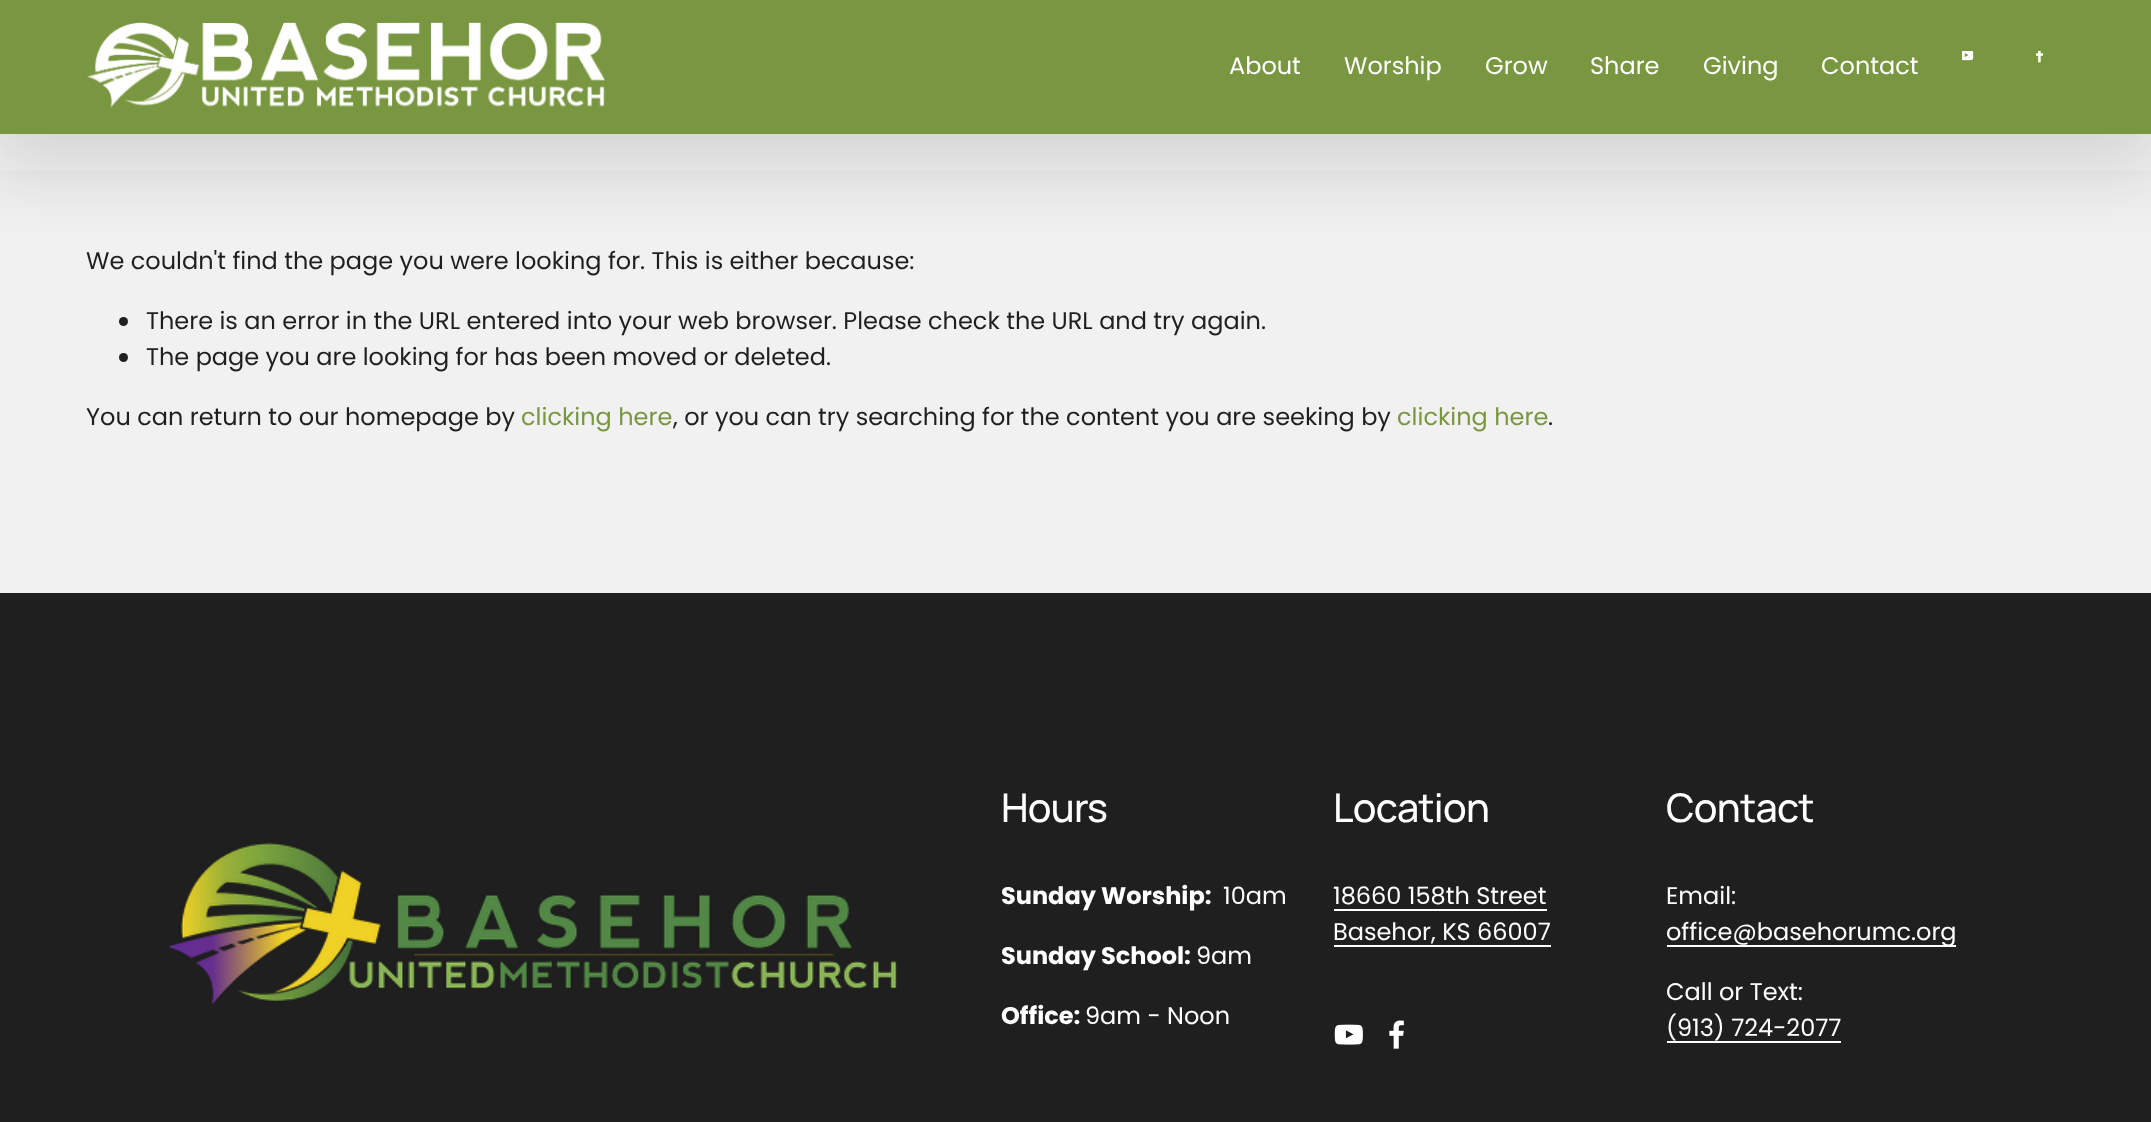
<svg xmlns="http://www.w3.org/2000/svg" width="2151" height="1122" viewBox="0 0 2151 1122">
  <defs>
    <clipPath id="clip1"><path d="M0 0H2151V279H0ZM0 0H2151V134H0Z" clip-rule="evenodd"/></clipPath>
    <filter id="blur1" x="-50%" y="-200%" width="200%" height="500%"><feGaussianBlur stdDeviation="36"/></filter>
  </defs>
  <rect width="100%" height="100%" fill="#f1f1f1"/>
  <rect x="0" y="0" width="2151" height="134" fill="#799640"/>
  <g clip-path="url(#clip1)">
    <rect x="-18" y="0" width="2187" height="170" fill="#1f1f1f" fill-opacity="0.15" filter="url(#blur1)"/>
  </g>
  <image x="87" y="22" width="519" height="86" href="img1.png"/>
  <text x="1229" y="74" font-family="Poppins" font-size="24" fill="#ffffff">About</text>
  <text x="1344" y="74" font-family="Poppins" font-size="24" fill="#ffffff">Worship</text>
  <text x="1485" y="74" font-family="Poppins" font-size="24" fill="#ffffff">Grow</text>
  <text x="1590" y="74" font-family="Poppins" font-size="24" fill="#ffffff">Share</text>
  <text x="1703" y="74" font-family="Poppins" font-size="24" fill="#ffffff">Giving</text>
  <text x="1821" y="74" font-family="Poppins" font-size="24" fill="#ffffff">Contact</text>
  <image x="1962" y="51" width="12" height="10" href="img2.png"/>
  <image x="2036" y="51" width="8" height="12" href="img3.png"/>
  <text x="86" y="269" font-family="Poppins" font-size="24" fill="#1f1f1f">We couldn't find the page you were looking for. This is either because:</text>
  <circle cx="123.5" cy="321.5" r="4.5" fill="#1f1f1f"/>
  <text x="146" y="329" font-family="Poppins" font-size="24" fill="#1f1f1f">There is an error in the URL entered into your web browser. Please check the URL and try again.</text>
  <circle cx="123.5" cy="357.5" r="4.5" fill="#1f1f1f"/>
  <text x="146" y="365" font-family="Poppins" font-size="24" fill="#1f1f1f">The page you are looking for has been moved or deleted.</text>
  <text x="86" y="425" font-family="Poppins" font-size="24" fill="#1f1f1f">You can return to our homepage by</text>
  <text x="521" y="425" font-family="Poppins" font-size="24" fill="#799640">clicking here</text>
  <text x="673" y="425" font-family="Poppins" font-size="24" fill="#1f1f1f">, or you can try searching for the content you are seeking by</text>
  <text x="1397" y="425" font-family="Poppins" font-size="24" fill="#799640">clicking here</text>
  <text x="1548" y="425" font-family="Poppins" font-size="24" fill="#1f1f1f">.</text>
  <rect x="0" y="593" width="2151" height="529" fill="#1f1f1f"/>
  <image x="169" y="842" width="729" height="163" href="img4.png"/>
  <text x="1001" y="822" font-family="Manrope" font-size="39.5" font-weight="500" letter-spacing="-0.75" fill="#ffffff">Hours</text>
  <text x="1001" y="904" font-family="Poppins" font-size="24" font-weight="bold" fill="#ffffff">Sunday Worship:</text>
  <text x="1223" y="904" font-family="Poppins" font-size="24" fill="#ffffff">10am</text>
  <text x="1001" y="964" font-family="Poppins" font-size="24" font-weight="bold" fill="#ffffff">Sunday School:</text>
  <text x="1196" y="964" font-family="Poppins" font-size="24" fill="#ffffff">9am</text>
  <text x="1001" y="1024" font-family="Poppins" font-size="24" font-weight="bold" fill="#ffffff">Office:</text>
  <text x="1085" y="1024" font-family="Poppins" font-size="24" fill="#ffffff">9am - Noon</text>
  <text x="1333" y="822" font-family="Manrope" font-size="39.5" font-weight="500" letter-spacing="-0.75" fill="#ffffff">Location</text>
  <text x="1333" y="904" font-family="Poppins" font-size="24" fill="#ffffff">18660 158th Street</text>
  <rect x="1334" y="909" width="213" height="2" fill="#ffffff"/>
  <text x="1333" y="940" font-family="Poppins" font-size="24" fill="#ffffff">Basehor, KS 66007</text>
  <rect x="1334" y="945" width="217" height="2" fill="#ffffff"/>
  <text x="1666" y="822" font-family="Manrope" font-size="39.5" font-weight="500" letter-spacing="-0.75" fill="#ffffff">Contact</text>
  <text x="1666" y="904" font-family="Poppins" font-size="24" fill="#ffffff">Email:</text>
  <rect x="1667" y="945" width="289" height="2" fill="#ffffff"/>
  <text x="1666" y="940" font-family="Poppins" font-size="24" fill="#ffffff">office@basehorumc.org</text>
  <text x="1666" y="1000" font-family="Poppins" font-size="24" fill="#ffffff">Call or Text:</text>
  <text x="1666" y="1036" font-family="Poppins" font-size="24" fill="#ffffff">(913) 724-2077</text>
  <rect x="1667" y="1041" width="174" height="2" fill="#ffffff"/>
  <image x="1334" y="1024" width="29" height="21" href="img5.png"/>
  <image x="1389" y="1020" width="15" height="29" href="img6.png"/>
</svg>
